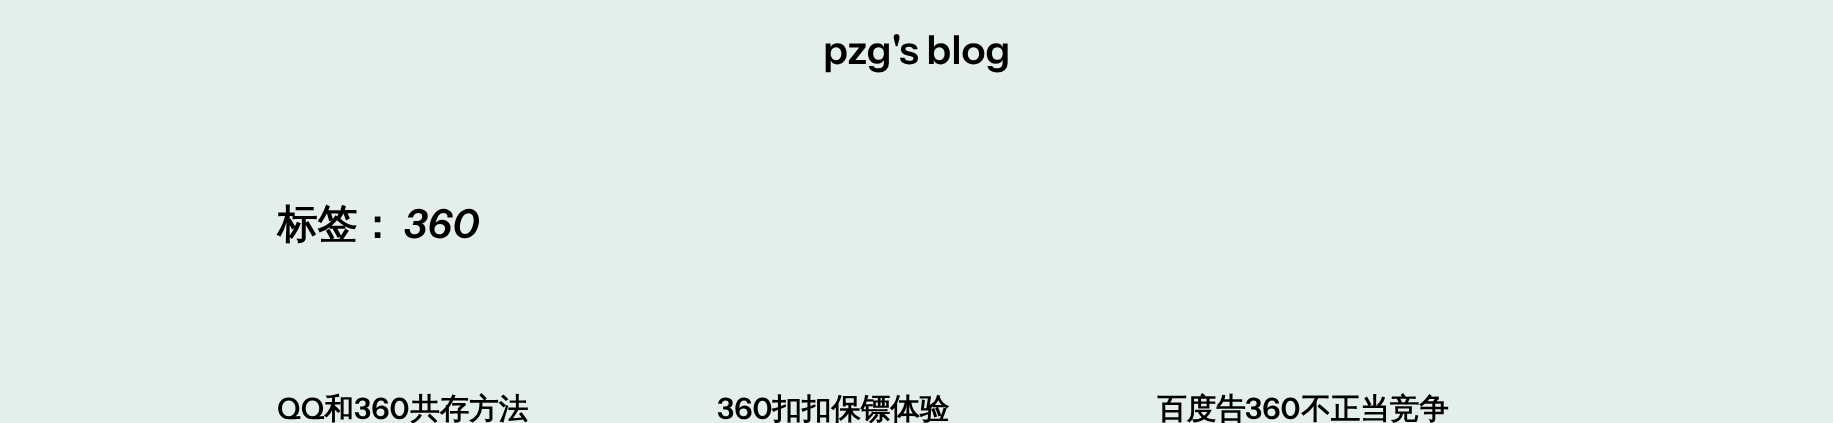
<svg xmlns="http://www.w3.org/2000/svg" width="1833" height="423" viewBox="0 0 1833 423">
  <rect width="100%" height="100%" fill="#e4efeb"/>
  <text x="823" y="64" font-family="Instrument Sans" font-size="40" font-weight="600" fill="#000000">pzg's blog</text>
  <text x="277" y="238" font-family="WenQuanYi Zen Hei" font-size="40" font-weight="bold" fill="#000000">标签：</text>
  <text x="404" y="238" font-family="Instrument Sans" font-size="40" font-weight="600" font-style="italic" fill="#000000">360</text>
  <text x="277" y="419" font-family="Instrument Sans" font-size="29.5" font-weight="600" fill="#000000">QQ</text>
  <text x="324" y="419" font-family="WenQuanYi Zen Hei" font-size="29.5" font-weight="bold" fill="#000000">和</text>
  <text x="354" y="419" font-family="Instrument Sans" font-size="29.5" font-weight="600" fill="#000000">360</text>
  <text x="410" y="419" font-family="WenQuanYi Zen Hei" font-size="29.5" font-weight="bold" fill="#000000">共存方法</text>
  <text x="717" y="419" font-family="Instrument Sans" font-size="29.5" font-weight="600" fill="#000000">360</text>
  <text x="772" y="419" font-family="WenQuanYi Zen Hei" font-size="29.5" font-weight="bold" fill="#000000">扣扣保镖体验</text>
  <text x="1157" y="419" font-family="WenQuanYi Zen Hei" font-size="29.5" font-weight="bold" fill="#000000">百度告</text>
  <text x="1245" y="419" font-family="Instrument Sans" font-size="29.5" font-weight="600" fill="#000000">360</text>
  <text x="1301" y="419" font-family="WenQuanYi Zen Hei" font-size="29.5" font-weight="bold" fill="#000000">不正当竞争</text>
</svg>
